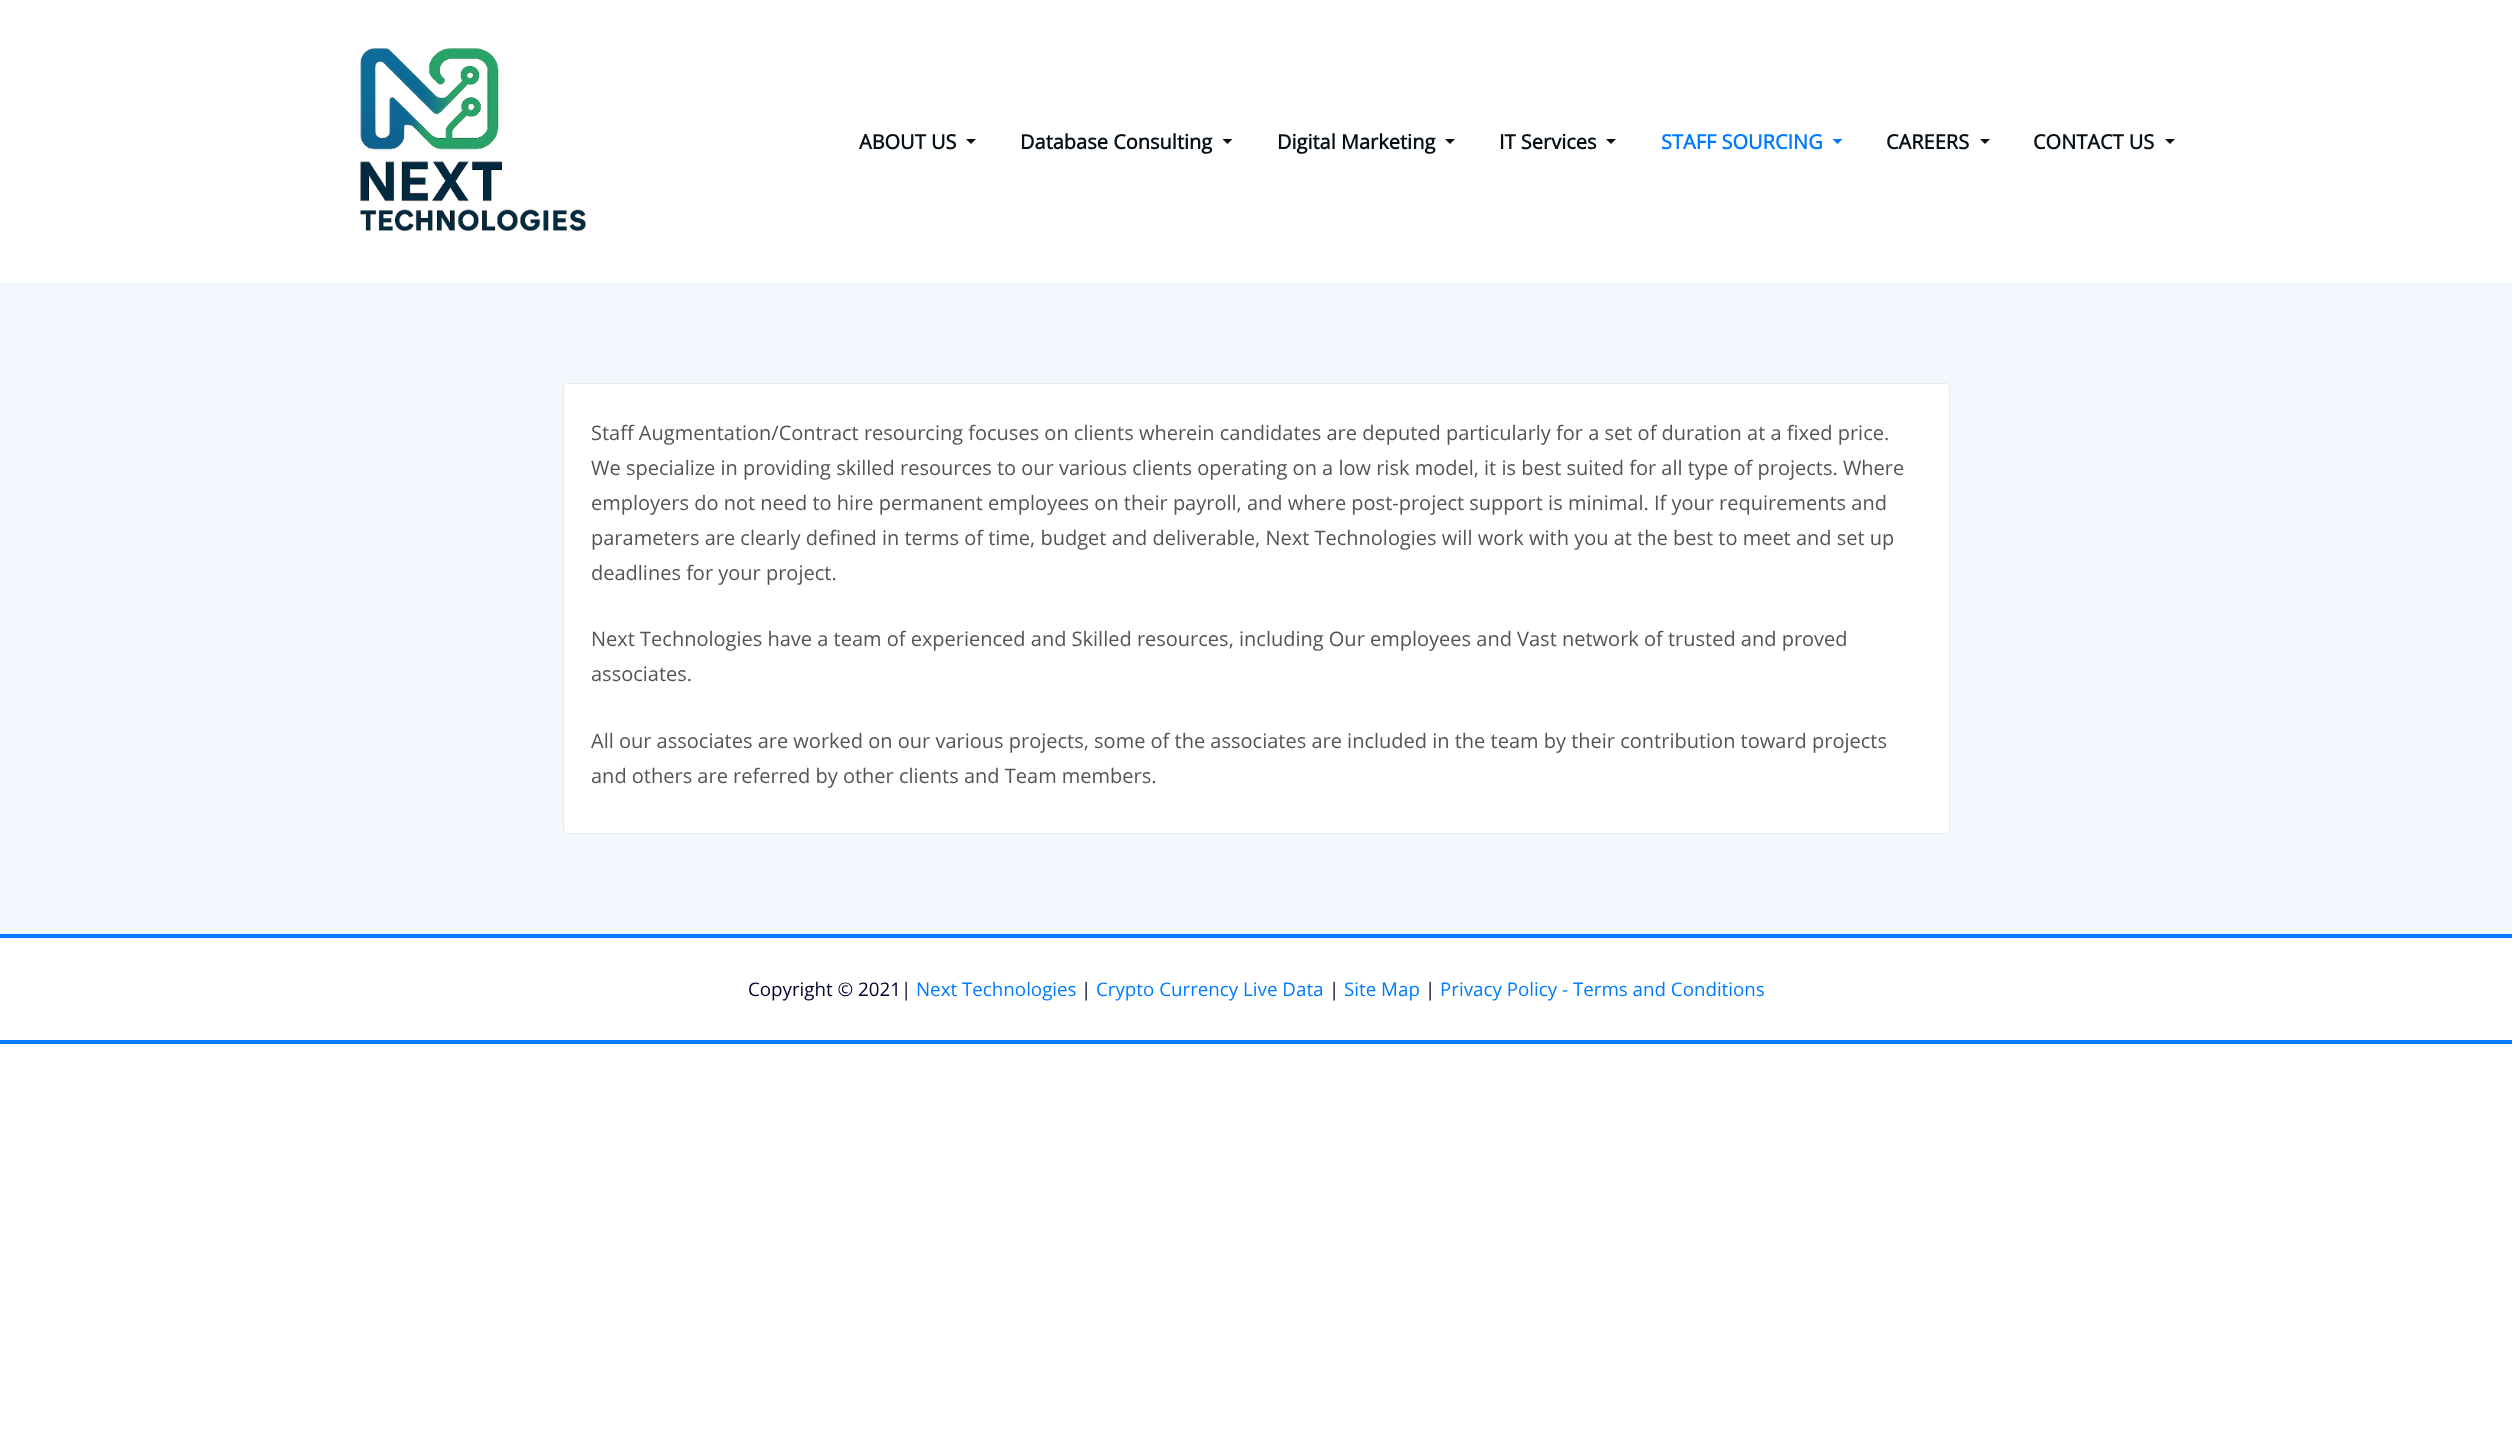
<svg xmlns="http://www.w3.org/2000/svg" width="2512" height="1456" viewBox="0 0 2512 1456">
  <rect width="100%" height="100%" fill="#ffffff"/>
  <image x="360" y="48" width="226" height="183" href="img1.png"/>
  <text x="859" y="149" font-family="Open Sans" font-size="20" font-weight="bold" fill="#061018">ABOUT US</text>
  <path d="M966 139H976L971 144Z" fill="#061018"/>
  <text x="1020" y="149" font-family="Open Sans" font-size="20" font-weight="bold" fill="#061018">Database Consulting</text>
  <path d="M1222.5 139H1232.5L1227.5 144Z" fill="#061018"/>
  <text x="1277" y="149" font-family="Open Sans" font-size="20" font-weight="bold" fill="#061018">Digital Marketing</text>
  <path d="M1445 139H1455L1450 144Z" fill="#061018"/>
  <text x="1499" y="149" font-family="Open Sans" font-size="20" font-weight="bold" fill="#061018">IT Services</text>
  <path d="M1606 139H1616L1611 144Z" fill="#061018"/>
  <text x="1661" y="149" font-family="Open Sans" font-size="20" font-weight="bold" fill="#007bff">STAFF SOURCING</text>
  <path d="M1832.5 139H1842.5L1837.5 144Z" fill="#007bff"/>
  <text x="1886" y="149" font-family="Open Sans" font-size="20" font-weight="bold" fill="#061018">CAREERS</text>
  <path d="M1980 139H1990L1985 144Z" fill="#061018"/>
  <text x="2033" y="149" font-family="Open Sans" font-size="20" font-weight="bold" fill="#061018">CONTACT US</text>
  <path d="M2165 139H2175L2170 144Z" fill="#061018"/>
  <rect x="0" y="283" width="2512" height="651" fill="#f3f8fe"/>
  <rect x="563.5" y="383.5" width="1386" height="450" rx="3.5" fill="#ffffff" stroke="#e9e9e9"/>
  <text x="591" y="440" font-family="Open Sans" font-size="20" fill="#545454">Staff Augmentation/Contract resourcing focuses on clients wherein candidates are deputed particularly for a set of duration at a fixed price.</text>
  <text x="591" y="475" font-family="Open Sans" font-size="20" fill="#545454">We specialize in providing skilled resources to our various clients operating on a low risk model, it is best suited for all type of projects. Where</text>
  <text x="591" y="510" font-family="Open Sans" font-size="20" fill="#545454">employers do not need to hire permanent employees on their payroll, and where post-project support is minimal. If your requirements and</text>
  <text x="591" y="545" font-family="Open Sans" font-size="20" fill="#545454">parameters are clearly defined in terms of time, budget and deliverable, Next Technologies will work with you at the best to meet and set up</text>
  <text x="591" y="580" font-family="Open Sans" font-size="20" fill="#545454">deadlines for your project.</text>
  <text x="591" y="646" font-family="Open Sans" font-size="20" fill="#545454">Next Technologies have a team of experienced and Skilled resources, including Our employees and Vast network of trusted and proved</text>
  <text x="591" y="681" font-family="Open Sans" font-size="20" fill="#545454">associates.</text>
  <text x="591" y="748" font-family="Open Sans" font-size="20" fill="#545454">All our associates are worked on our various projects, some of the associates are included in the team by their contribution toward projects</text>
  <text x="591" y="783" font-family="Open Sans" font-size="20" fill="#545454">and others are referred by other clients and Team members.</text>
  <rect x="0" y="934" width="2512" height="4" fill="#007bff"/>
  <rect x="0" y="1040" width="2512" height="4" fill="#007bff"/>
  <text x="748" y="996" font-family="Open Sans" font-size="18.75" fill="#01012f">Copyright © 2021|</text>
  <text x="916" y="996" font-family="Open Sans" font-size="18.75" fill="#007bff">Next Technologies</text>
  <text x="1081" y="996" font-family="Open Sans" font-size="18.75" fill="#01012f">|</text>
  <text x="1096" y="996" font-family="Open Sans" font-size="18.75" fill="#007bff">Crypto Currency Live Data</text>
  <text x="1329" y="996" font-family="Open Sans" font-size="18.75" fill="#01012f">|</text>
  <text x="1344" y="996" font-family="Open Sans" font-size="18.75" fill="#007bff">Site Map</text>
  <text x="1425" y="996" font-family="Open Sans" font-size="18.75" fill="#01012f">|</text>
  <text x="1440" y="996" font-family="Open Sans" font-size="18.75" fill="#007bff">Privacy Policy - Terms and Conditions</text>
</svg>
